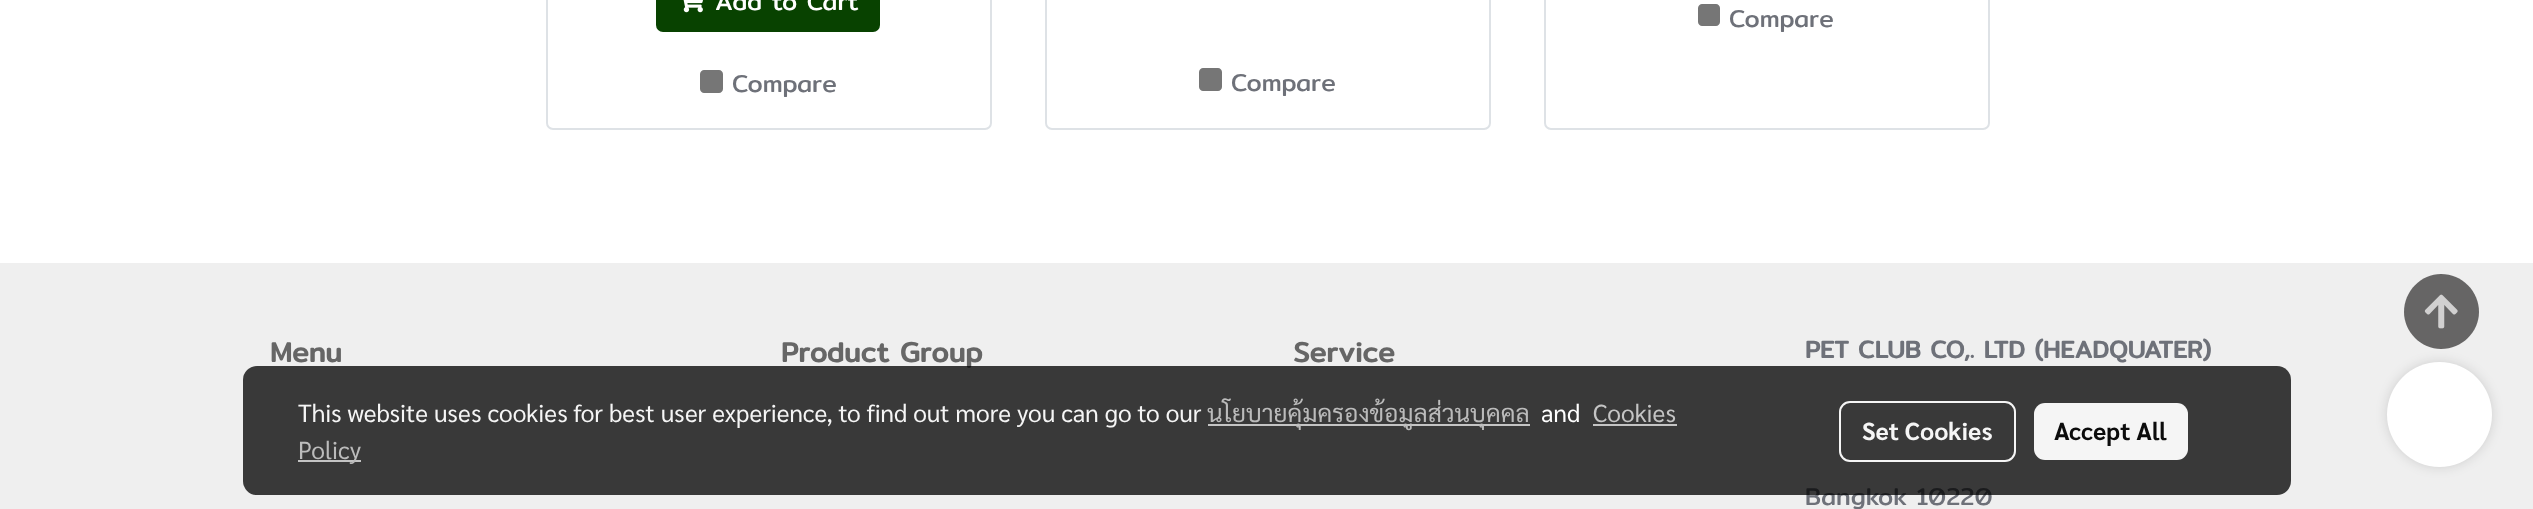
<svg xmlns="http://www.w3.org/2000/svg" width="2533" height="509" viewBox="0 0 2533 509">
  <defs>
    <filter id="blur1" x="-50%" y="-200%" width="200%" height="500%"><feGaussianBlur stdDeviation="6"/></filter>
  </defs>
  <rect width="100%" height="100%" fill="#ffffff"/>
  <rect x="547" y="-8" width="444" height="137" rx="6" fill="none" stroke="#dee2e6" stroke-width="2"/>
  <rect x="656" y="-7" width="224" height="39" rx="7" fill="#084200"/>
  <image x="683" y="0" width="20" height="13" href="img1.png"/>
  <text x="715" y="10" font-family="Mitr" font-size="24.5" fill="#ffffff">Add to Cart</text>
  <path d="M704 70H719C721 70 723 72 723 74V89C723 91 721 93 719 93H704C702 93 700 91 700 89V74C700 72 702 70 704 70Z" fill="#767676"/>
  <text x="732" y="92" font-family="Mitr" font-size="24.5" fill="#6e7179">Compare</text>
  <rect x="1545" y="-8" width="444" height="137" rx="6" fill="none" stroke="#dee2e6" stroke-width="2"/>
  <path d="M1702 4H1716C1718 4 1720 6 1720 8V22C1720 24 1718 26 1716 26H1702C1700 26 1698 24 1698 22V8C1698 6 1700 4 1702 4Z" fill="#767676"/>
  <text x="1729" y="27" font-family="Mitr" font-size="24.5" fill="#6e7179">Compare</text>
  <rect x="1046" y="-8" width="444" height="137" rx="6" fill="none" stroke="#dee2e6" stroke-width="2"/>
  <path d="M1203 68H1218C1220 68 1222 70 1222 72V87C1222 89 1220 91 1218 91H1203C1201 91 1199 89 1199 87V72C1199 70 1201 68 1203 68Z" fill="#767676"/>
  <text x="1231" y="91" font-family="Mitr" font-size="24.5" fill="#6e7179">Compare</text>
  <rect x="0" y="263" width="2533" height="246" fill="#efefef"/>
  <text x="270" y="362" font-family="Mitr" font-size="28" font-weight="bold" fill="#666666">Menu</text>
  <text x="781" y="362" font-family="Mitr" font-size="28" font-weight="bold" fill="#666666">Product Group</text>
  <text x="1293" y="362" font-family="Mitr" font-size="28" font-weight="bold" fill="#666666">Service</text>
  <text x="1805" y="358" font-family="Mitr" font-size="24.5" font-weight="bold" fill="#6e7179">PET CLUB CO,. LTD (HEADQUATER)</text>
  <text x="1805" y="505" font-family="Mitr" font-size="24.5" fill="#6e7179">Bangkok 10220</text>
  <rect x="2387" y="362" width="105" height="105" rx="52.5" fill="#000000" fill-opacity="0.14" filter="url(#blur1)"/>
  <path d="M2441 274C2421 274 2404 291 2404 312C2404 332 2421 349 2441 349C2462 349 2479 332 2479 312C2479 291 2462 274 2441 274Z" fill="#666565"/>
  <image x="2424" y="294" width="34" height="35" href="img2.png"/>
  <rect x="243" y="366" width="2048" height="129" rx="14" fill="#000000" fill-opacity="0.76"/>
  <text x="298" y="422" font-family="Sarabun" font-size="24.5" fill="#f5f5f5">This website uses cookies for best user experience, to find out more you can go to our</text>
  <rect x="1208" y="424" width="322" height="2" fill="#c4c4c4"/>
  <text x="1207" y="422" font-family="Sarabun" font-size="24.5" fill="#bbbbbb">นโยบายคุ้มครองข้อมูลส่วนบุคคล</text>
  <text x="1541" y="422" font-family="Sarabun" font-size="24.5" fill="#ffffff">and</text>
  <text x="1593" y="422" font-family="Sarabun" font-size="24.5" fill="#c4c4c4">Cookies</text>
  <rect x="1593" y="424" width="84" height="2" fill="#c4c4c4"/>
  <rect x="298" y="460" width="63" height="2" fill="#c4c4c4"/>
  <text x="298" y="459" font-family="Sarabun" font-size="24.5" fill="#bbbbbb">Policy</text>
  <rect x="1840" y="402" width="175" height="59" rx="10" fill="none" stroke="#ffffff" stroke-opacity="0.95" stroke-width="2"/>
  <text x="1862" y="440" font-family="Sarabun" font-size="24.5" font-weight="bold" fill="#f5f5f5">Set Cookies</text>
  <rect x="2034" y="403" width="154" height="57" rx="11" fill="#ffffff" fill-opacity="0.95"/>
  <text x="2054" y="440" font-family="Sarabun" font-size="24.5" font-weight="bold" fill="#0c0c0c">Accept All</text>
  <circle cx="2439.5" cy="414.5" r="52.5" fill="#ffffff"/>
</svg>
